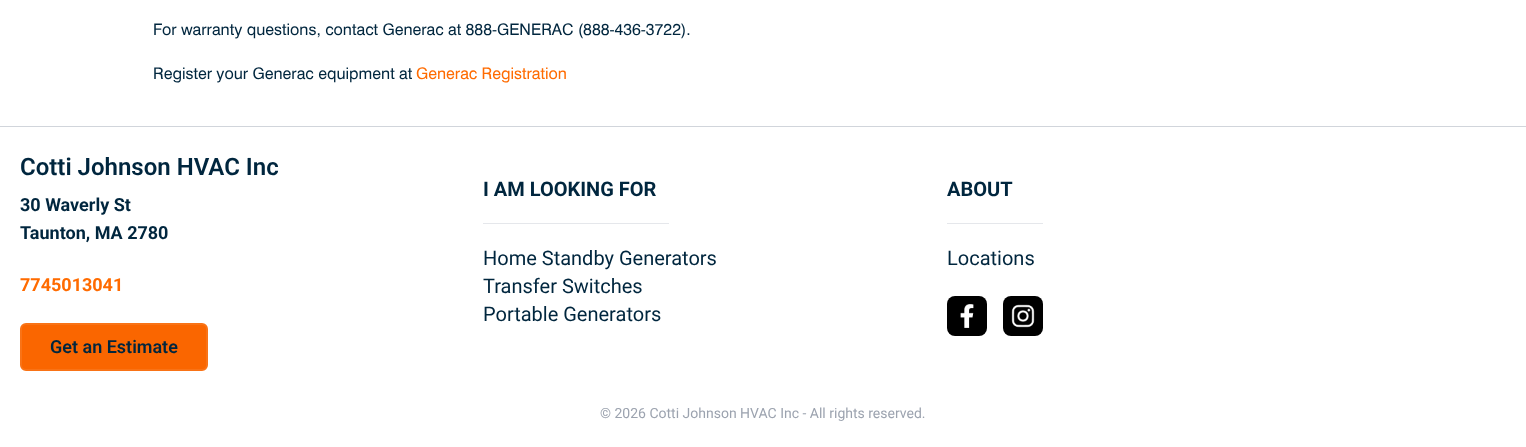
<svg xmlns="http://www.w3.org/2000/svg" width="1526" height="447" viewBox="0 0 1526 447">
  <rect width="100%" height="100%" fill="#ffffff"/>
  <text x="153" y="35" font-family="'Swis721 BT'" font-size="16" fill="#00263e">For warranty questions, contact Generac at 888-GENERAC (888-436-3722).</text>
  <text x="153" y="79" font-family="'Swis721 BT'" font-size="16" fill="#00263e">Register your Generac equipment at</text>
  <text x="416" y="79" font-family="'Swis721 BT'" font-size="16" fill="#ff6b00">Generac Registration</text>
  <rect x="0" y="126" width="1526" height="1" fill="#d1d5db"/>
  <text x="20" y="175" font-family="Roboto" font-size="24" font-weight="600" fill="#00263e">Cotti Johnson HVAC Inc</text>
  <text x="20" y="211" font-family="Roboto" font-size="18" font-weight="bold" fill="#00263e">30 Waverly St</text>
  <text x="20" y="239" font-family="Roboto" font-size="18" font-weight="bold" fill="#00263e">Taunton, MA 2780</text>
  <text x="20" y="291" font-family="Roboto" font-size="18" font-weight="bold" fill="#ff6b00">7745013041</text>
  <rect x="21" y="324" width="186" height="46" rx="5" fill="#fa6600" stroke="#f97316" stroke-width="2"/>
  <text x="50" y="353" font-family="Roboto" font-size="18" font-weight="600" fill="#00263e">Get an Estimate</text>
  <text x="483" y="196" font-family="Roboto" font-size="20" font-weight="bold" fill="#00263e">I AM LOOKING FOR</text>
  <rect x="483" y="223" width="186" height="1" fill="#e5e7eb"/>
  <text x="483" y="265" font-family="Roboto" font-size="20" fill="#00263e">Home Standby Generators</text>
  <text x="483" y="293" font-family="Roboto" font-size="20" fill="#00263e">Transfer Switches</text>
  <text x="483" y="321" font-family="Roboto" font-size="20" fill="#00263e">Portable Generators</text>
  <text x="947" y="196" font-family="Roboto" font-size="20" font-weight="bold" fill="#00263e">ABOUT</text>
  <rect x="947" y="223" width="96" height="1" fill="#e5e7eb"/>
  <text x="947" y="265" font-family="Roboto" font-size="20" fill="#00263e">Locations</text>
  <image x="947" y="296" width="40" height="40" href="img1.png"/>
  <image x="1003" y="296" width="40" height="40" href="img2.png"/>
  <text x="600" y="418" font-family="Roboto" font-size="14" fill="#9ca3af">© 2026 Cotti Johnson HVAC Inc - All rights reserved.</text>
</svg>
